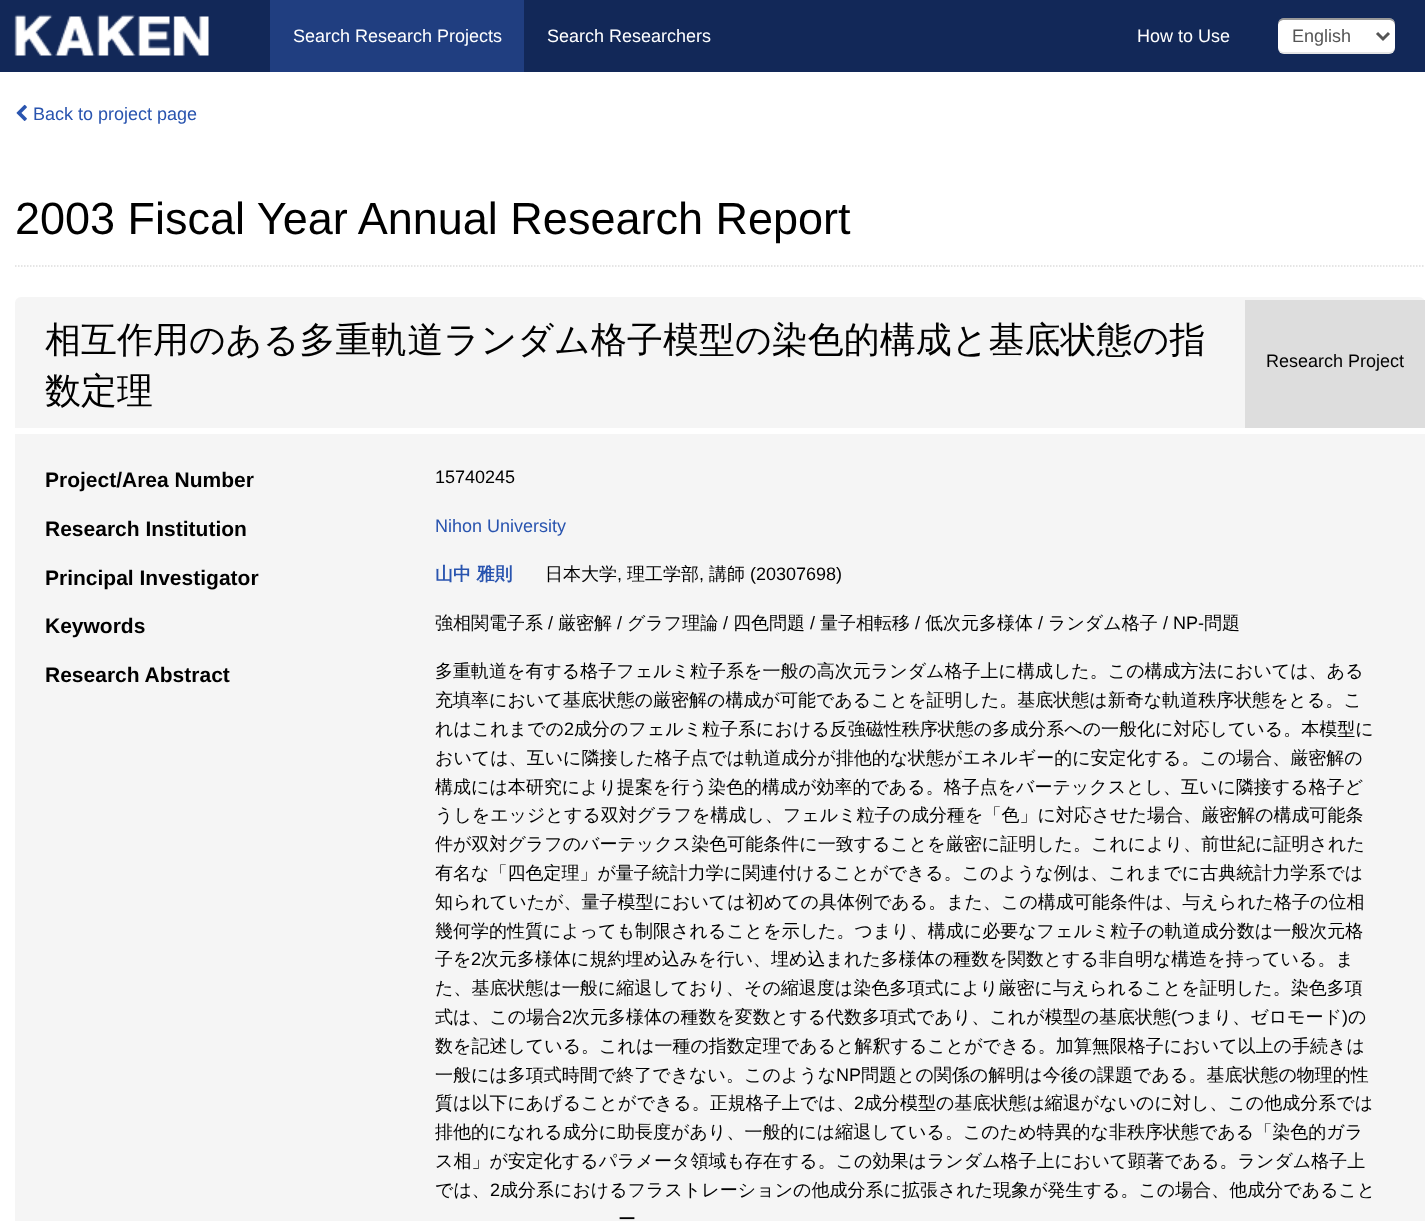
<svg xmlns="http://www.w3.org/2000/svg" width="1425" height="1221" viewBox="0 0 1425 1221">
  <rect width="100%" height="100%" fill="#ffffff"/>
  <rect x="0" y="0" width="1425" height="72" fill="#122858"/>
  <image x="14" y="14" width="195" height="42" href="img1.png"/>
  <rect x="270" y="0" width="254" height="72" fill="#203e80"/>
  <text x="293" y="42" font-family="Liberation Sans" font-size="18" fill="#ffffff">Search Research Projects</text>
  <text x="547" y="42" font-family="Liberation Sans" font-size="18" fill="#ffffff">Search Researchers</text>
  <text x="1137" y="42" font-family="Liberation Sans" font-size="18" fill="#ffffff">How to Use</text>
  <rect x="1278" y="18" width="117" height="36" rx="6" fill="#ffffff"/>
  <path d="M1278 46V48C1278 51 1281 54 1284 54H1389C1392 54 1395 51 1395 48V46C1395 50 1392 52 1389 52H1284C1281 52 1278 50 1278 46Z" fill="#000000" fill-opacity="0.1"/>
  <path d="M1284 20H1389C1392 20 1395 22 1395 26V24C1395 21 1392 18 1389 18H1284C1281 18 1278 21 1278 24V26C1278 22 1281 20 1284 20Z" fill="#000000" fill-opacity="0.4"/>
  <path d="M1377 33L1383 39L1389 33" fill="none" stroke="#555555" stroke-width="3"/>
  <text x="1292" y="42" font-family="Liberation Sans" font-size="18" fill="#555555">English</text>
  <image x="16" y="104" width="11" height="17" href="img2.png"/>
  <text x="33" y="120" font-family="Liberation Sans" font-size="18" fill="#2954af">Back to project page</text>
  <path d="M15 266H1425" fill="none" stroke="#dddddd" stroke-width="1.5" stroke-dasharray="1.5 1.5"/>
  <text x="15" y="234" font-family="Liberation Sans" font-size="45" fill="#000000">2003 Fiscal Year Annual Research Report</text>
  <rect x="15" y="297" width="1410" height="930" rx="6" fill="#f5f5f5"/>
  <rect x="1245" y="300" width="180" height="128" fill="#dddddd"/>
  <text x="45" y="352" font-family="WenQuanYi Zen Hei" font-size="36" font-weight="500" fill="#000000">相互作用のある多重軌道ランダム格子模型の染色的構成と基底状態の指</text>
  <text x="45" y="403" font-family="WenQuanYi Zen Hei" font-size="36" font-weight="500" fill="#000000">数定理</text>
  <text x="1266" y="367" font-family="Liberation Sans" font-size="18" fill="#000000">Research Project</text>
  <rect x="15" y="428" width="1410" height="6" fill="#ffffff"/>
  <text x="45" y="487" font-family="Liberation Sans" font-size="21" font-weight="bold" fill="#000000">Project/Area Number</text>
  <text x="435" y="483" font-family="Liberation Sans" font-size="18" fill="#000000">15740245</text>
  <text x="45" y="536" font-family="Liberation Sans" font-size="21" font-weight="bold" fill="#000000">Research Institution</text>
  <text x="435" y="532" font-family="Liberation Sans" font-size="18" fill="#2954af">Nihon University</text>
  <text x="45" y="585" font-family="Liberation Sans" font-size="21" font-weight="bold" fill="#000000">Principal Investigator</text>
  <text x="435" y="580" font-family="WenQuanYi Zen Hei" font-size="18" font-weight="bold" fill="#2954af">山中 雅則</text>
  <text x="545" y="580" font-family="WenQuanYi Zen Hei" font-size="18" font-weight="500" fill="#000000">日本大学</text>
  <text x="617" y="580" font-family="Liberation Sans" font-size="18" fill="#000000">,</text>
  <text x="627" y="580" font-family="WenQuanYi Zen Hei" font-size="18" font-weight="500" fill="#000000">理工学部</text>
  <text x="699" y="580" font-family="Liberation Sans" font-size="18" fill="#000000">,</text>
  <text x="709" y="580" font-family="WenQuanYi Zen Hei" font-size="18" font-weight="500" fill="#000000">講師</text>
  <text x="750" y="580" font-family="Liberation Sans" font-size="18" fill="#000000">(20307698)</text>
  <text x="45" y="633" font-family="Liberation Sans" font-size="21" font-weight="bold" fill="#000000">Keywords</text>
  <text x="435" y="629" font-family="WenQuanYi Zen Hei" font-size="18" font-weight="500" fill="#000000">強相関電子系</text>
  <text x="548" y="629" font-family="Liberation Sans" font-size="18" fill="#000000">/</text>
  <text x="558" y="629" font-family="WenQuanYi Zen Hei" font-size="18" font-weight="500" fill="#000000">厳密解</text>
  <text x="617" y="629" font-family="Liberation Sans" font-size="18" fill="#000000">/</text>
  <text x="627" y="629" font-family="WenQuanYi Zen Hei" font-size="18" font-weight="500" fill="#000000">グラフ理論</text>
  <text x="723" y="629" font-family="Liberation Sans" font-size="18" fill="#000000">/</text>
  <text x="733" y="629" font-family="WenQuanYi Zen Hei" font-size="18" font-weight="500" fill="#000000">四色問題</text>
  <text x="810" y="629" font-family="Liberation Sans" font-size="18" fill="#000000">/</text>
  <text x="820" y="629" font-family="WenQuanYi Zen Hei" font-size="18" font-weight="500" fill="#000000">量子相転移</text>
  <text x="915" y="629" font-family="Liberation Sans" font-size="18" fill="#000000">/</text>
  <text x="925" y="629" font-family="WenQuanYi Zen Hei" font-size="18" font-weight="500" fill="#000000">低次元多様体</text>
  <text x="1038" y="629" font-family="Liberation Sans" font-size="18" fill="#000000">/</text>
  <text x="1048" y="629" font-family="WenQuanYi Zen Hei" font-size="18" font-weight="500" fill="#000000">ランダム格子</text>
  <text x="1163" y="629" font-family="Liberation Sans" font-size="18" fill="#000000">/ NP-</text>
  <text x="1204" y="629" font-family="WenQuanYi Zen Hei" font-size="18" font-weight="500" fill="#000000">問題</text>
  <text x="45" y="682" font-family="Liberation Sans" font-size="21" font-weight="bold" fill="#000000">Research Abstract</text>
  <text x="435" y="677" font-family="WenQuanYi Zen Hei" font-size="18" font-weight="500" fill="#000000">多重軌道を有する格子フェルミ粒子系を一般の高次元ランダム格子上に構成した。この構成方法においては、ある</text>
  <text x="435" y="706" font-family="WenQuanYi Zen Hei" font-size="18" font-weight="500" fill="#000000">充填率において基底状態の厳密解の構成が可能であることを証明した。基底状態は新奇な軌道秩序状態をとる。こ</text>
  <text x="435" y="735" font-family="WenQuanYi Zen Hei" font-size="18" font-weight="500" fill="#000000">れはこれまでの</text>
  <text x="564" y="735" font-family="Liberation Sans" font-size="18" fill="#000000">2</text>
  <text x="574" y="735" font-family="WenQuanYi Zen Hei" font-size="18" font-weight="500" fill="#000000">成分のフェルミ粒子系における反強磁性秩序状態の多成分系への一般化に対応している。本模型に</text>
  <text x="435" y="764" font-family="WenQuanYi Zen Hei" font-size="18" font-weight="500" fill="#000000">おいては、互いに隣接した格子点では軌道成分が排他的な状態がエネルギー的に安定化する。この場合、厳密解の</text>
  <text x="435" y="793" font-family="WenQuanYi Zen Hei" font-size="18" font-weight="500" fill="#000000">構成には本研究により提案を行う染色的構成が効率的である。格子点をバーテックスとし、互いに隣接する格子ど</text>
  <text x="435" y="821" font-family="WenQuanYi Zen Hei" font-size="18" font-weight="500" fill="#000000">うしをエッジとする双対グラフを構成し、フェルミ粒子の成分種を「色」に対応させた場合、厳密解の構成可能条</text>
  <text x="435" y="850" font-family="WenQuanYi Zen Hei" font-size="18" font-weight="500" fill="#000000">件が双対グラフのバーテックス染色可能条件に一致することを厳密に証明した。これにより、前世紀に証明された</text>
  <text x="435" y="879" font-family="WenQuanYi Zen Hei" font-size="18" font-weight="500" fill="#000000">有名な「四色定理」が量子統計力学に関連付けることができる。このような例は、これまでに古典統計力学系では</text>
  <text x="435" y="908" font-family="WenQuanYi Zen Hei" font-size="18" font-weight="500" fill="#000000">知られていたが、量子模型においては初めての具体例である。また、この構成可能条件は、与えられた格子の位相</text>
  <text x="435" y="937" font-family="WenQuanYi Zen Hei" font-size="18" font-weight="500" fill="#000000">幾何学的性質によっても制限されることを示した。つまり、構成に必要なフェルミ粒子の軌道成分数は一般次元格</text>
  <text x="435" y="965" font-family="WenQuanYi Zen Hei" font-size="18" font-weight="500" fill="#000000">子を</text>
  <text x="471" y="965" font-family="Liberation Sans" font-size="18" fill="#000000">2</text>
  <text x="481" y="965" font-family="WenQuanYi Zen Hei" font-size="18" font-weight="500" fill="#000000">次元多様体に規約埋め込みを行い、埋め込まれた多様体の種数を関数とする非自明な構造を持っている。ま</text>
  <text x="435" y="994" font-family="WenQuanYi Zen Hei" font-size="18" font-weight="500" fill="#000000">た、基底状態は一般に縮退しており、その縮退度は染色多項式により厳密に与えられることを証明した。染色多項</text>
  <text x="435" y="1023" font-family="WenQuanYi Zen Hei" font-size="18" font-weight="500" fill="#000000">式は、この場合</text>
  <text x="562" y="1023" font-family="Liberation Sans" font-size="18" fill="#000000">2</text>
  <text x="572" y="1023" font-family="WenQuanYi Zen Hei" font-size="18" font-weight="500" fill="#000000">次元多様体の種数を変数とする代数多項式であり、これが模型の基底状態</text>
  <text x="1171" y="1023" font-family="Liberation Sans" font-size="18" fill="#000000">(</text>
  <text x="1177" y="1023" font-family="WenQuanYi Zen Hei" font-size="18" font-weight="500" fill="#000000">つまり、ゼロモード</text>
  <text x="1342" y="1023" font-family="Liberation Sans" font-size="18" fill="#000000">)</text>
  <text x="1348" y="1023" font-family="WenQuanYi Zen Hei" font-size="18" font-weight="500" fill="#000000">の</text>
  <text x="435" y="1052" font-family="WenQuanYi Zen Hei" font-size="18" font-weight="500" fill="#000000">数を記述している。これは一種の指数定理であると解釈することができる。加算無限格子において以上の手続きは</text>
  <text x="435" y="1081" font-family="WenQuanYi Zen Hei" font-size="18" font-weight="500" fill="#000000">一般には多項式時間で終了できない。このような</text>
  <text x="836" y="1081" font-family="Liberation Sans" font-size="18" fill="#000000">NP</text>
  <text x="861" y="1081" font-family="WenQuanYi Zen Hei" font-size="18" font-weight="500" fill="#000000">問題との関係の解明は今後の課題である。基底状態の物理的性</text>
  <text x="435" y="1109" font-family="WenQuanYi Zen Hei" font-size="18" font-weight="500" fill="#000000">質は以下にあげることができる。正規格子上では、</text>
  <text x="854" y="1109" font-family="Liberation Sans" font-size="18" fill="#000000">2</text>
  <text x="864" y="1109" font-family="WenQuanYi Zen Hei" font-size="18" font-weight="500" fill="#000000">成分模型の基底状態は縮退がないのに対し、この他成分系では</text>
  <text x="435" y="1138" font-family="WenQuanYi Zen Hei" font-size="18" font-weight="500" fill="#000000">排他的になれる成分に助長度があり、一般的には縮退している。このため特異的な非秩序状態である「染色的ガラ</text>
  <text x="435" y="1167" font-family="WenQuanYi Zen Hei" font-size="18" font-weight="500" fill="#000000">ス相」が安定化するパラメータ領域も存在する。この効果はランダム格子上において顕著である。ランダム格子上</text>
  <text x="435" y="1196" font-family="WenQuanYi Zen Hei" font-size="18" font-weight="500" fill="#000000">では、</text>
  <text x="490" y="1196" font-family="Liberation Sans" font-size="18" fill="#000000">2</text>
  <text x="500" y="1196" font-family="WenQuanYi Zen Hei" font-size="18" font-weight="500" fill="#000000">成分系におけるフラストレーションの他成分系に拡張された現象が発生する。この場合、他成分であること</text>
  <text x="618" y="1225" font-family="WenQuanYi Zen Hei" font-size="18" font-weight="500" fill="#000000">ー</text>
</svg>
